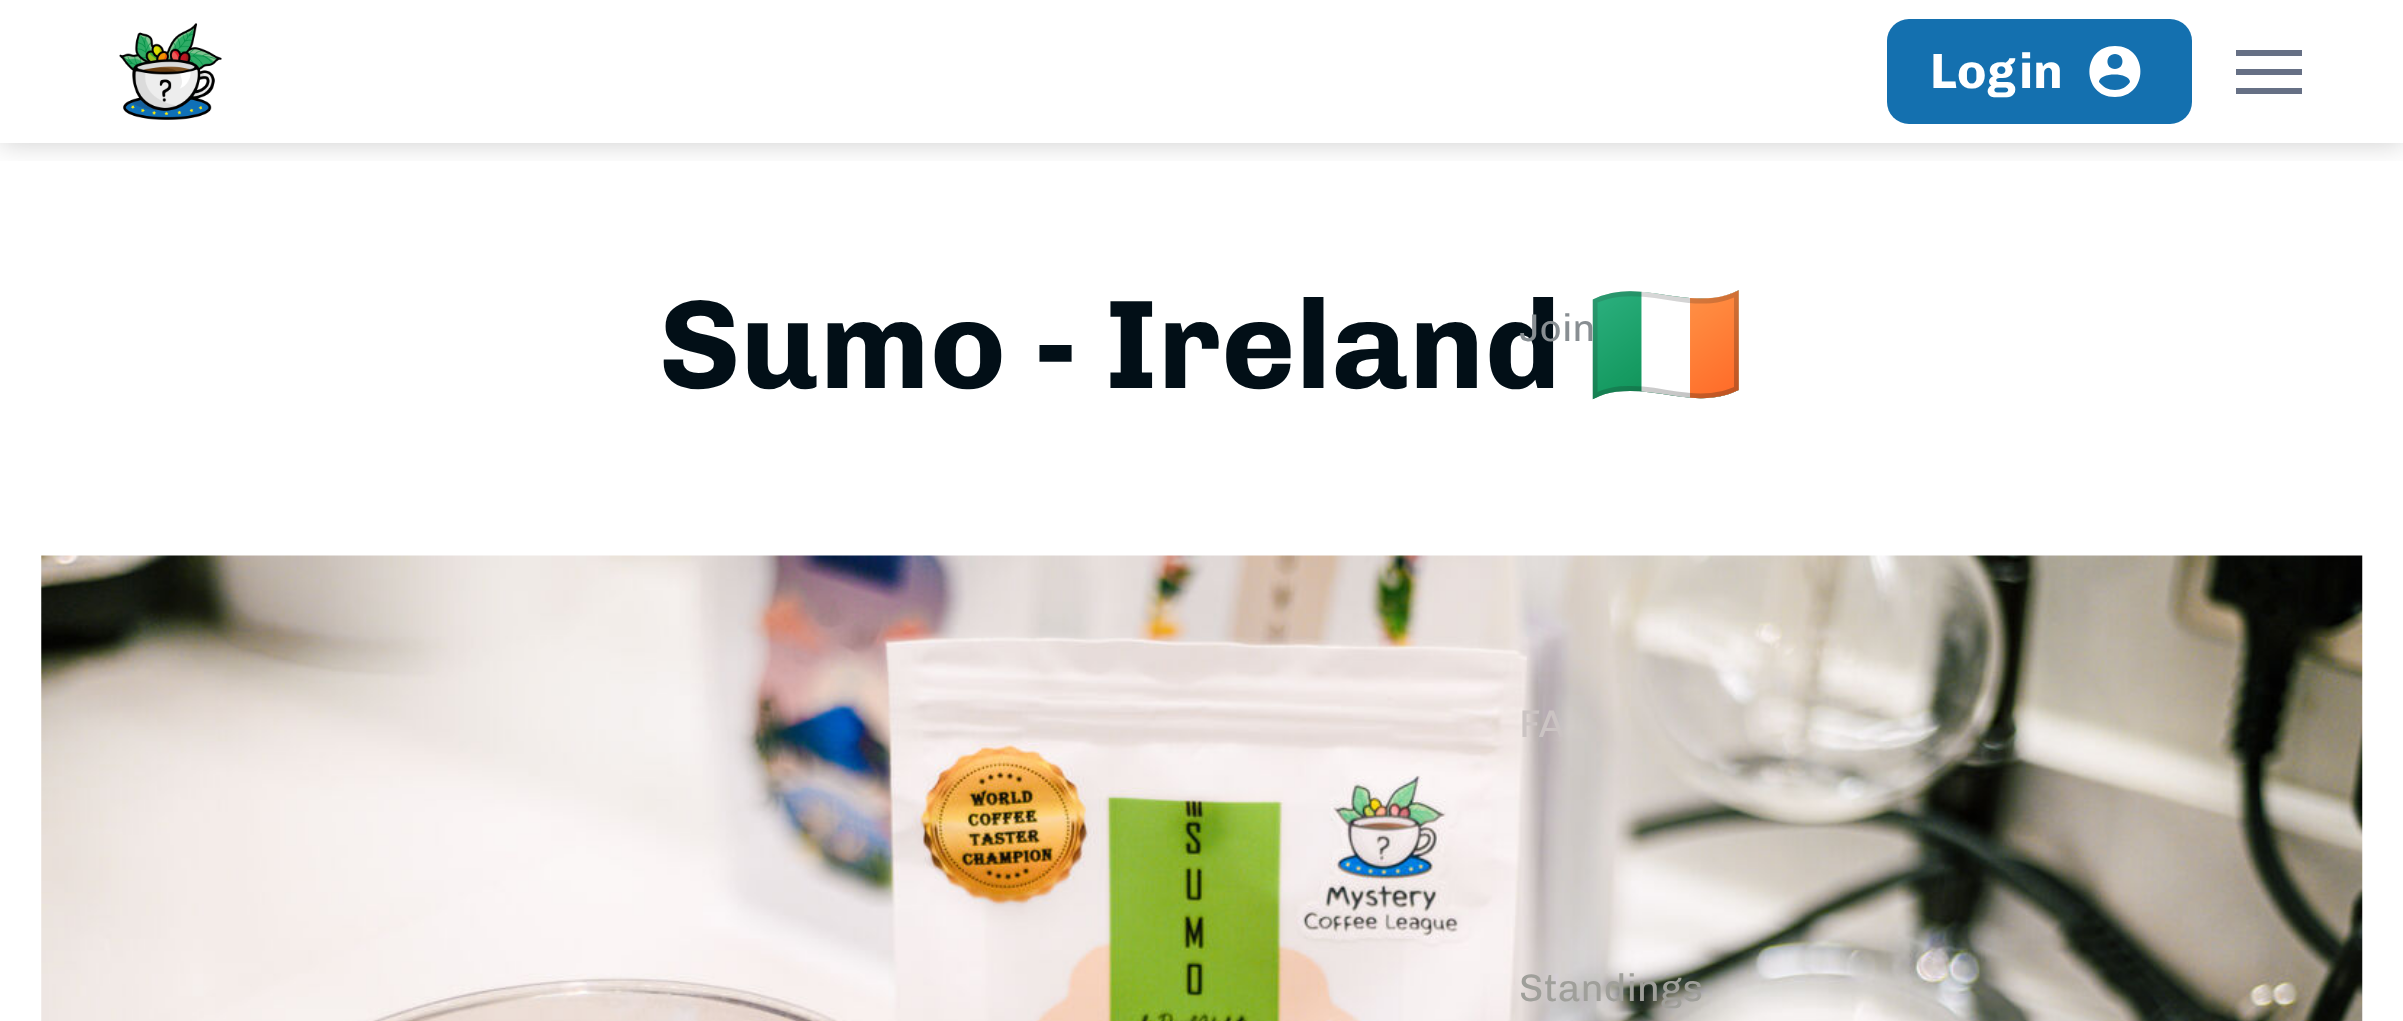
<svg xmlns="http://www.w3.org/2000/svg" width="2403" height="1021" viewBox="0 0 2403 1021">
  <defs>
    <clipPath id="clip1"><rect x="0" y="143" width="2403" height="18"/></clipPath>
    <filter id="blur1" x="-50%" y="-200%" width="200%" height="500%"><feGaussianBlur stdDeviation="14"/></filter>
  </defs>
  <rect width="100%" height="100%" fill="#ffffff"/>
  <text x="659" y="388" font-family="Chivo" font-size="126.5" font-weight="bold" fill="#020f17">Sumo - Ireland</text>
  <text x="1587" y="388" font-family="Noto Color Emoji" font-size="126.5" font-weight="bold" fill="#020f17">🇮🇪</text>
  <image x="41" y="555" width="2322" height="466" href="img1.png"/>
  <g clip-path="url(#clip1)">
    <rect x="0" y="0" width="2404" height="143" fill="#000000" fill-opacity="0.2" filter="url(#blur1)"/>
  </g>
  <image x="119" y="23" width="103" height="97" href="img2.png"/>
  <rect x="1887" y="19" width="305" height="105" rx="22" fill="#1470af"/>
  <text x="1930" y="88" font-family="Chivo" font-size="49.5" font-weight="bold" fill="#ffffff">Login</text>
  <path d="M2115 46C2081 46 2081 97 2115 97C2149 97 2149 46 2115 46ZM2115 54C2125 54 2125 69 2115 69C2105 69 2105 54 2115 54ZM2115 90C2108 90 2103 87 2099 82C2099 72 2130 72 2130 82C2127 87 2121 90 2115 90Z" fill="#ffffff"/>
  <rect x="2236" y="50" width="66" height="6" fill="#667085"/>
  <rect x="2236" y="69" width="66" height="6" fill="#667085"/>
  <rect x="2236" y="88" width="66" height="6" fill="#667085"/>
  <text x="1519" y="341" font-family="Chivo" font-size="38.5" fill="#888e92">Join</text>
  <text x="1519" y="737" font-family="Chivo" font-size="38.5" fill="#cbc4c3">FA</text>
  <text x="1519" y="1001" font-family="Chivo" font-size="38.5" fill="#9f9f9a">Standings</text>
</svg>
